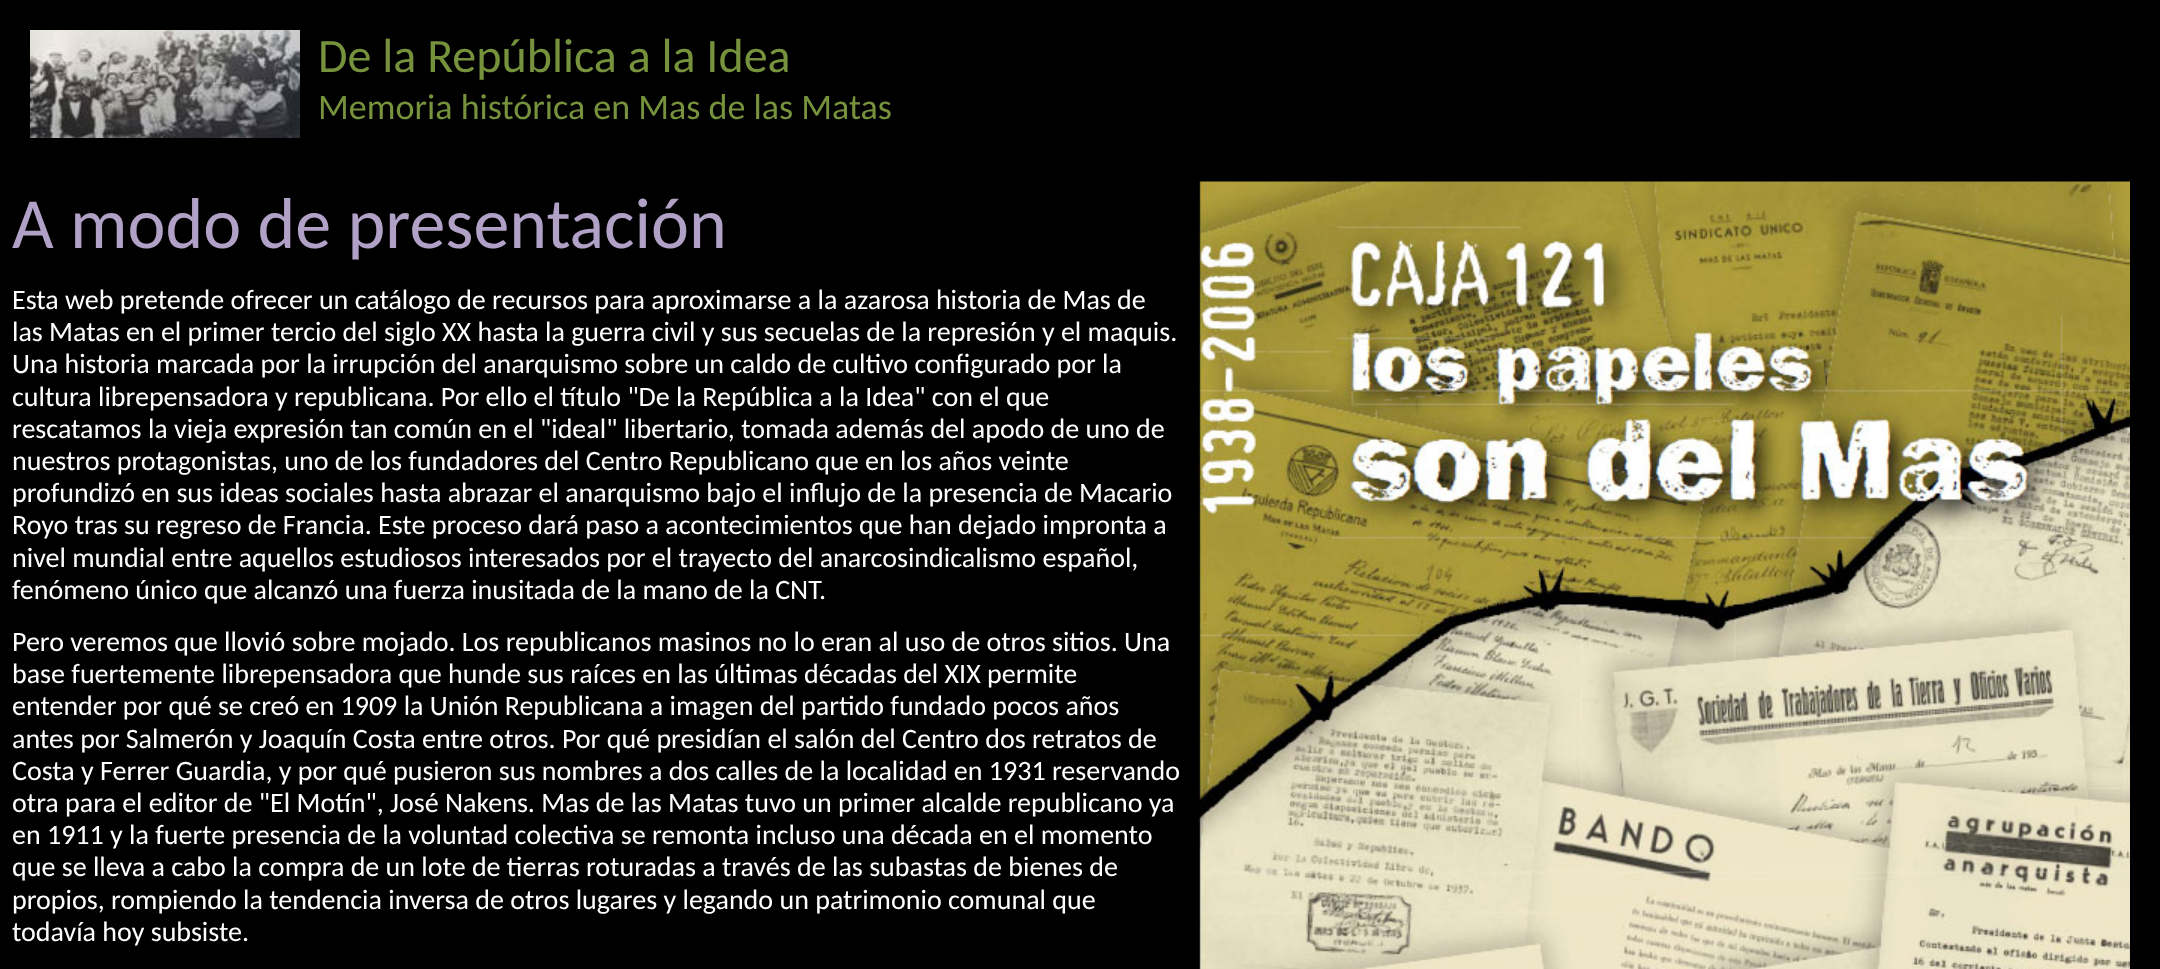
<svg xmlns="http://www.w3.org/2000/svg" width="2160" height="969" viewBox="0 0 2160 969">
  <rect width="100%" height="100%" fill="#000000"/>
  <image x="30" y="30" width="270" height="108" href="img1.png"/>
  <text x="318" y="72" font-family="Carlito" font-size="48" fill="#76923c">De la República a la Idea</text>
  <text x="318" y="119" font-family="Carlito" font-size="36" fill="#76923c">Memoria histórica en Mas de las Matas</text>
  <text x="12" y="248" font-family="Carlito" font-size="72" fill="#b2a1c7">A modo de presentación</text>
  <image x="1198" y="181" width="932" height="788" href="img2.png"/>
  <text x="12" y="309" font-family="Carlito" font-size="28" fill="#ffffff">Esta web pretende ofrecer un catálogo de recursos para aproximarse a la azarosa historia de Mas de</text>
  <text x="12" y="341" font-family="Carlito" font-size="28" fill="#ffffff">las Matas en el primer tercio del siglo XX hasta la guerra civil y sus secuelas de la represión y el maquis.</text>
  <text x="12" y="373" font-family="Carlito" font-size="28" fill="#ffffff">Una historia marcada por la irrupción del anarquismo sobre un caldo de cultivo configurado por la</text>
  <text x="12" y="406" font-family="Carlito" font-size="28" fill="#ffffff">cultura librepensadora y republicana. Por ello el título "De la República a la Idea" con el que</text>
  <text x="12" y="438" font-family="Carlito" font-size="28" fill="#ffffff">rescatamos la vieja expresión tan común en el "ideal" libertario, tomada además del apodo de uno de</text>
  <text x="12" y="470" font-family="Carlito" font-size="28" fill="#ffffff">nuestros protagonistas, uno de los fundadores del Centro Republicano que en los años veinte</text>
  <text x="12" y="502" font-family="Carlito" font-size="28" fill="#ffffff">profundizó en sus ideas sociales hasta abrazar el anarquismo bajo el influjo de la presencia de Macario</text>
  <text x="12" y="534" font-family="Carlito" font-size="28" fill="#ffffff">Royo tras su regreso de Francia. Este proceso dará paso a acontecimientos que han dejado impronta a</text>
  <text x="12" y="567" font-family="Carlito" font-size="28" fill="#ffffff">nivel mundial entre aquellos estudiosos interesados por el trayecto del anarcosindicalismo español,</text>
  <text x="12" y="599" font-family="Carlito" font-size="28" fill="#ffffff">fenómeno único que alcanzó una fuerza inusitada de la mano de la CNT.</text>
  <text x="12" y="651" font-family="Carlito" font-size="28" fill="#ffffff">Pero veremos que llovió sobre mojado. Los republicanos masinos no lo eran al uso de otros sitios. Una</text>
  <text x="12" y="683" font-family="Carlito" font-size="28" fill="#ffffff">base fuertemente librepensadora que hunde sus raíces en las últimas décadas del XIX permite</text>
  <text x="12" y="715" font-family="Carlito" font-size="28" fill="#ffffff">entender por qué se creó en 1909 la Unión Republicana a imagen del partido fundado pocos años</text>
  <text x="12" y="748" font-family="Carlito" font-size="28" fill="#ffffff">antes por Salmerón y Joaquín Costa entre otros. Por qué presidían el salón del Centro dos retratos de</text>
  <text x="12" y="780" font-family="Carlito" font-size="28" fill="#ffffff">Costa y Ferrer Guardia, y por qué pusieron sus nombres a dos calles de la localidad en 1931 reservando</text>
  <text x="12" y="812" font-family="Carlito" font-size="28" fill="#ffffff">otra para el editor de "El Motín", José Nakens. Mas de las Matas tuvo un primer alcalde republicano ya</text>
  <text x="12" y="844" font-family="Carlito" font-size="28" fill="#ffffff">en 1911 y la fuerte presencia de la voluntad colectiva se remonta incluso una década en el momento</text>
  <text x="12" y="876" font-family="Carlito" font-size="28" fill="#ffffff">que se lleva a cabo la compra de un lote de tierras roturadas a través de las subastas de bienes de</text>
  <text x="12" y="909" font-family="Carlito" font-size="28" fill="#ffffff">propios, rompiendo la tendencia inversa de otros lugares y legando un patrimonio comunal que</text>
  <text x="12" y="941" font-family="Carlito" font-size="28" fill="#ffffff">todavía hoy subsiste.</text>
</svg>
